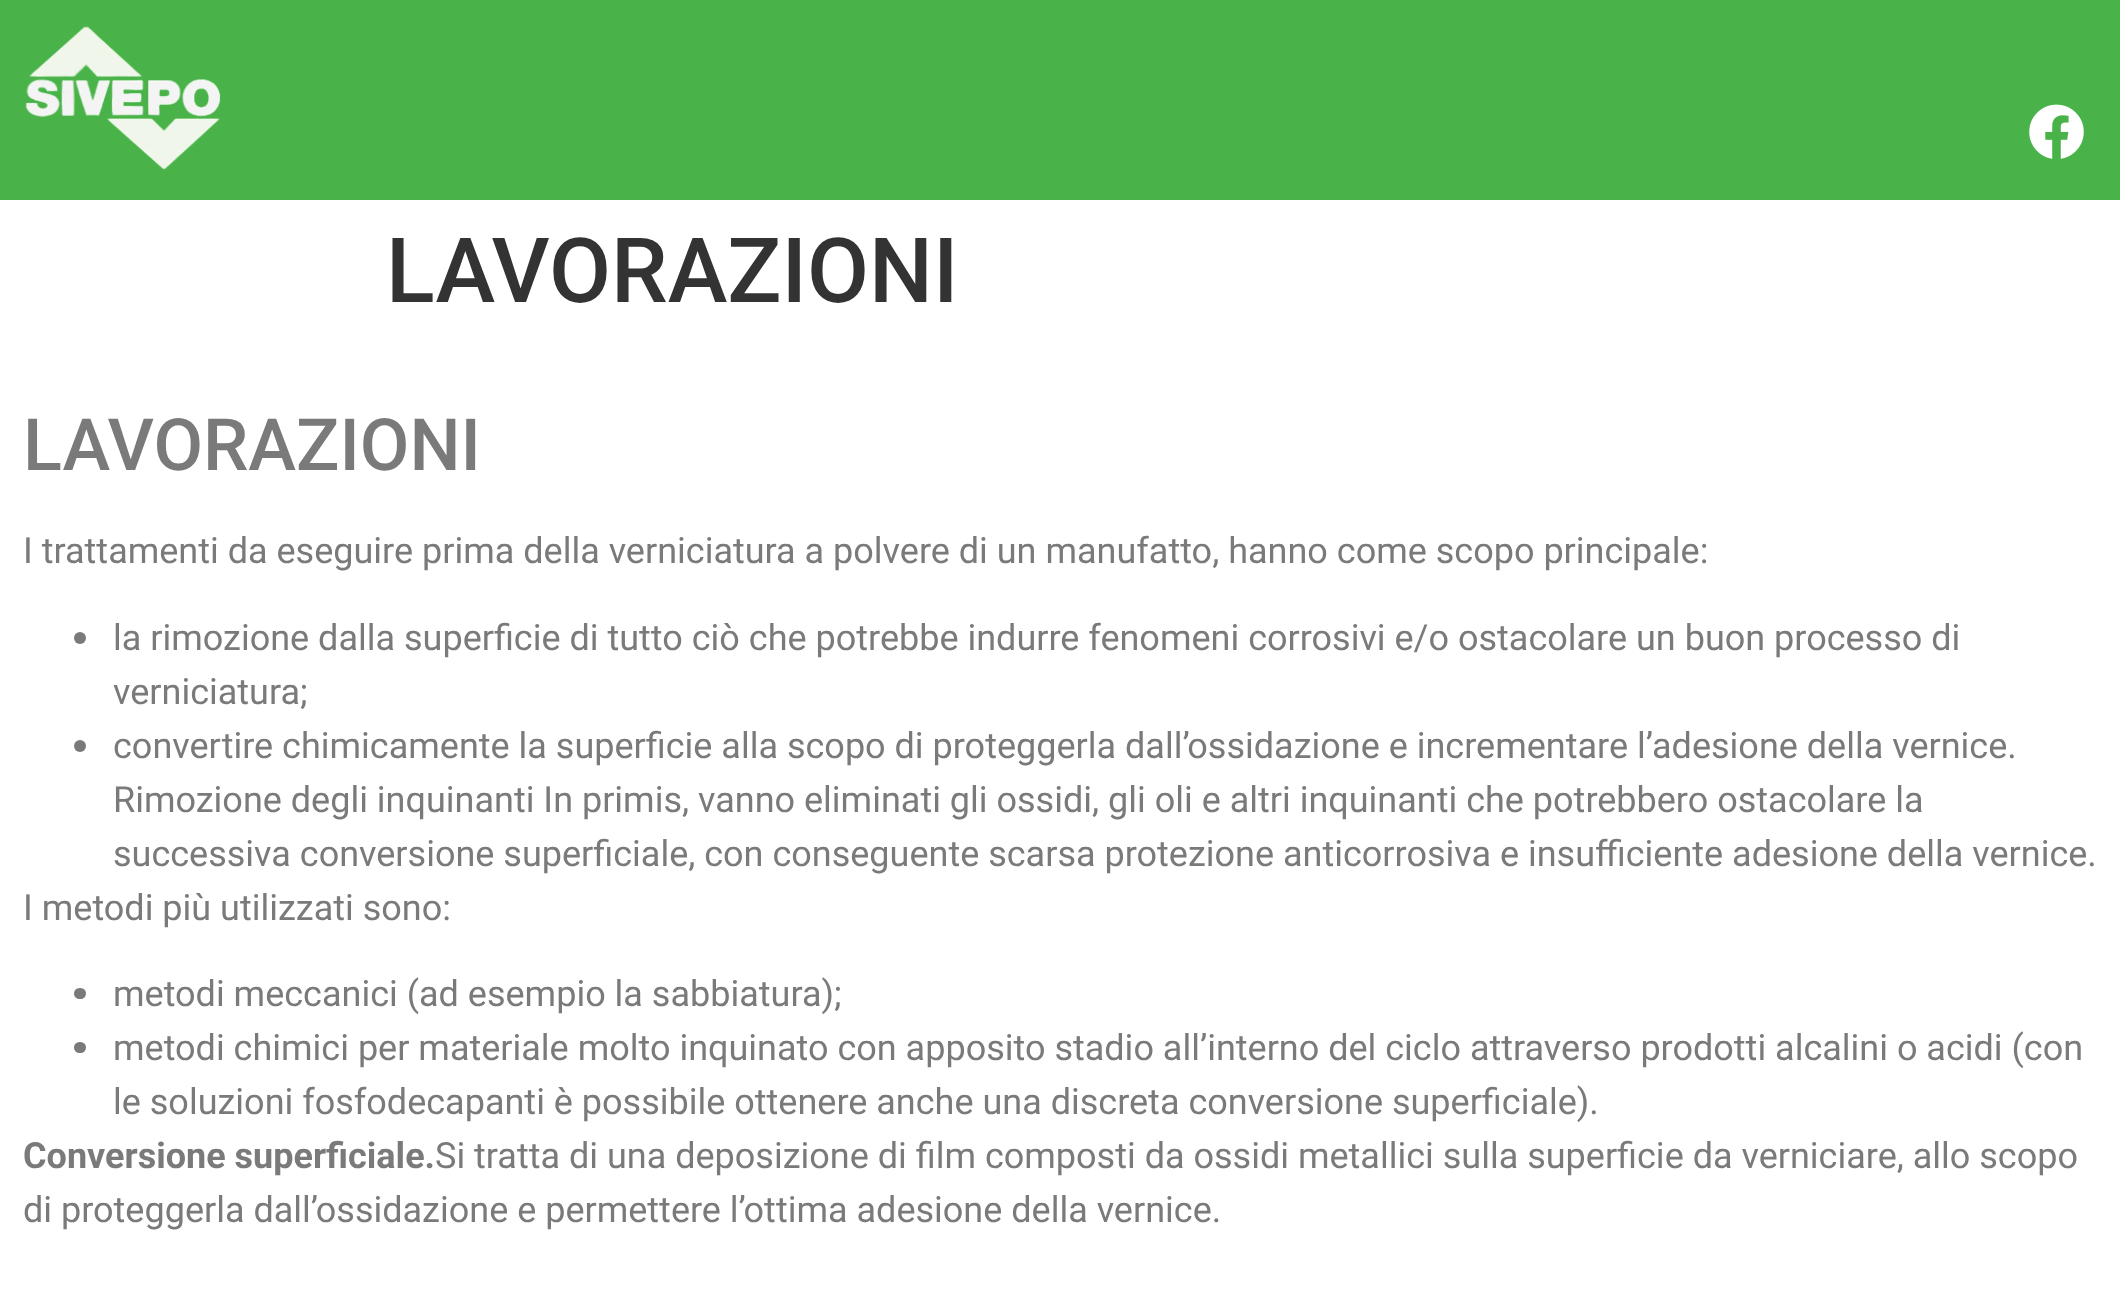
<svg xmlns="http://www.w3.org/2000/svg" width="2120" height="1291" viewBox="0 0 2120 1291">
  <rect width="100%" height="100%" fill="#ffffff"/>
  <rect x="0" y="0" width="2120" height="200" fill="#49b349"/>
  <image x="25" y="26" width="196" height="144" href="img1.png"/>
  <image x="2029" y="104" width="55" height="55" href="img2.png"/>
  <text x="386" y="302" font-family="Roboto" font-size="90" font-weight="500" fill="#333333">LAVORAZIONI</text>
  <text x="23" y="470" font-family="Roboto" font-size="72" font-weight="500" fill="#7a7a7a">LAVORAZIONI</text>
  <text x="23" y="563" font-family="Roboto" font-size="36" fill="#7a7a7a">I trattamenti da eseguire prima della verniciatura a polvere di un manufatto, hanno come scopo principale:</text>
  <circle cx="80" cy="638" r="6" fill="#7a7a7a"/>
  <text x="113" y="650" font-family="Roboto" font-size="36" fill="#7a7a7a">la rimozione dalla superficie di tutto ciò che potrebbe indurre fenomeni corrosivi e/o ostacolare un buon processo di</text>
  <text x="113" y="704" font-family="Roboto" font-size="36" fill="#7a7a7a">verniciatura;</text>
  <circle cx="80" cy="746" r="6" fill="#7a7a7a"/>
  <text x="113" y="758" font-family="Roboto" font-size="36" fill="#7a7a7a">convertire chimicamente la superficie alla scopo di proteggerla dall’ossidazione e incrementare l’adesione della vernice.</text>
  <text x="113" y="812" font-family="Roboto" font-size="36" fill="#7a7a7a">Rimozione degli inquinanti In primis, vanno eliminati gli ossidi, gli oli e altri inquinanti che potrebbero ostacolare la</text>
  <text x="113" y="866" font-family="Roboto" font-size="36" fill="#7a7a7a">successiva conversione superficiale, con conseguente scarsa protezione anticorrosiva e insufficiente adesione della vernice.</text>
  <text x="23" y="920" font-family="Roboto" font-size="36" fill="#7a7a7a">I metodi più utilizzati sono:</text>
  <rect x="74" y="988" width="12" height="11" rx="5.5" fill="#7a7a7a"/>
  <text x="113" y="1006" font-family="Roboto" font-size="36" fill="#7a7a7a">metodi meccanici (ad esempio la sabbiatura);</text>
  <rect x="74" y="1042" width="12" height="11" rx="5.5" fill="#7a7a7a"/>
  <text x="113" y="1060" font-family="Roboto" font-size="36" fill="#7a7a7a">metodi chimici per materiale molto inquinato con apposito stadio all’interno del ciclo attraverso prodotti alcalini o acidi (con</text>
  <text x="113" y="1114" font-family="Roboto" font-size="36" fill="#7a7a7a">le soluzioni fosfodecapanti è possibile ottenere anche una discreta conversione superficiale).</text>
  <text x="23" y="1168" font-family="Roboto" font-size="36" font-weight="bold" fill="#7a7a7a">Conversione superficiale.</text>
  <text x="435" y="1168" font-family="Roboto" font-size="36" fill="#7a7a7a">Si tratta di una deposizione di film composti da ossidi metallici sulla superficie da verniciare, allo scopo</text>
  <text x="23" y="1222" font-family="Roboto" font-size="36" fill="#7a7a7a">di proteggerla dall’ossidazione e permettere l’ottima adesione della vernice.</text>
</svg>
